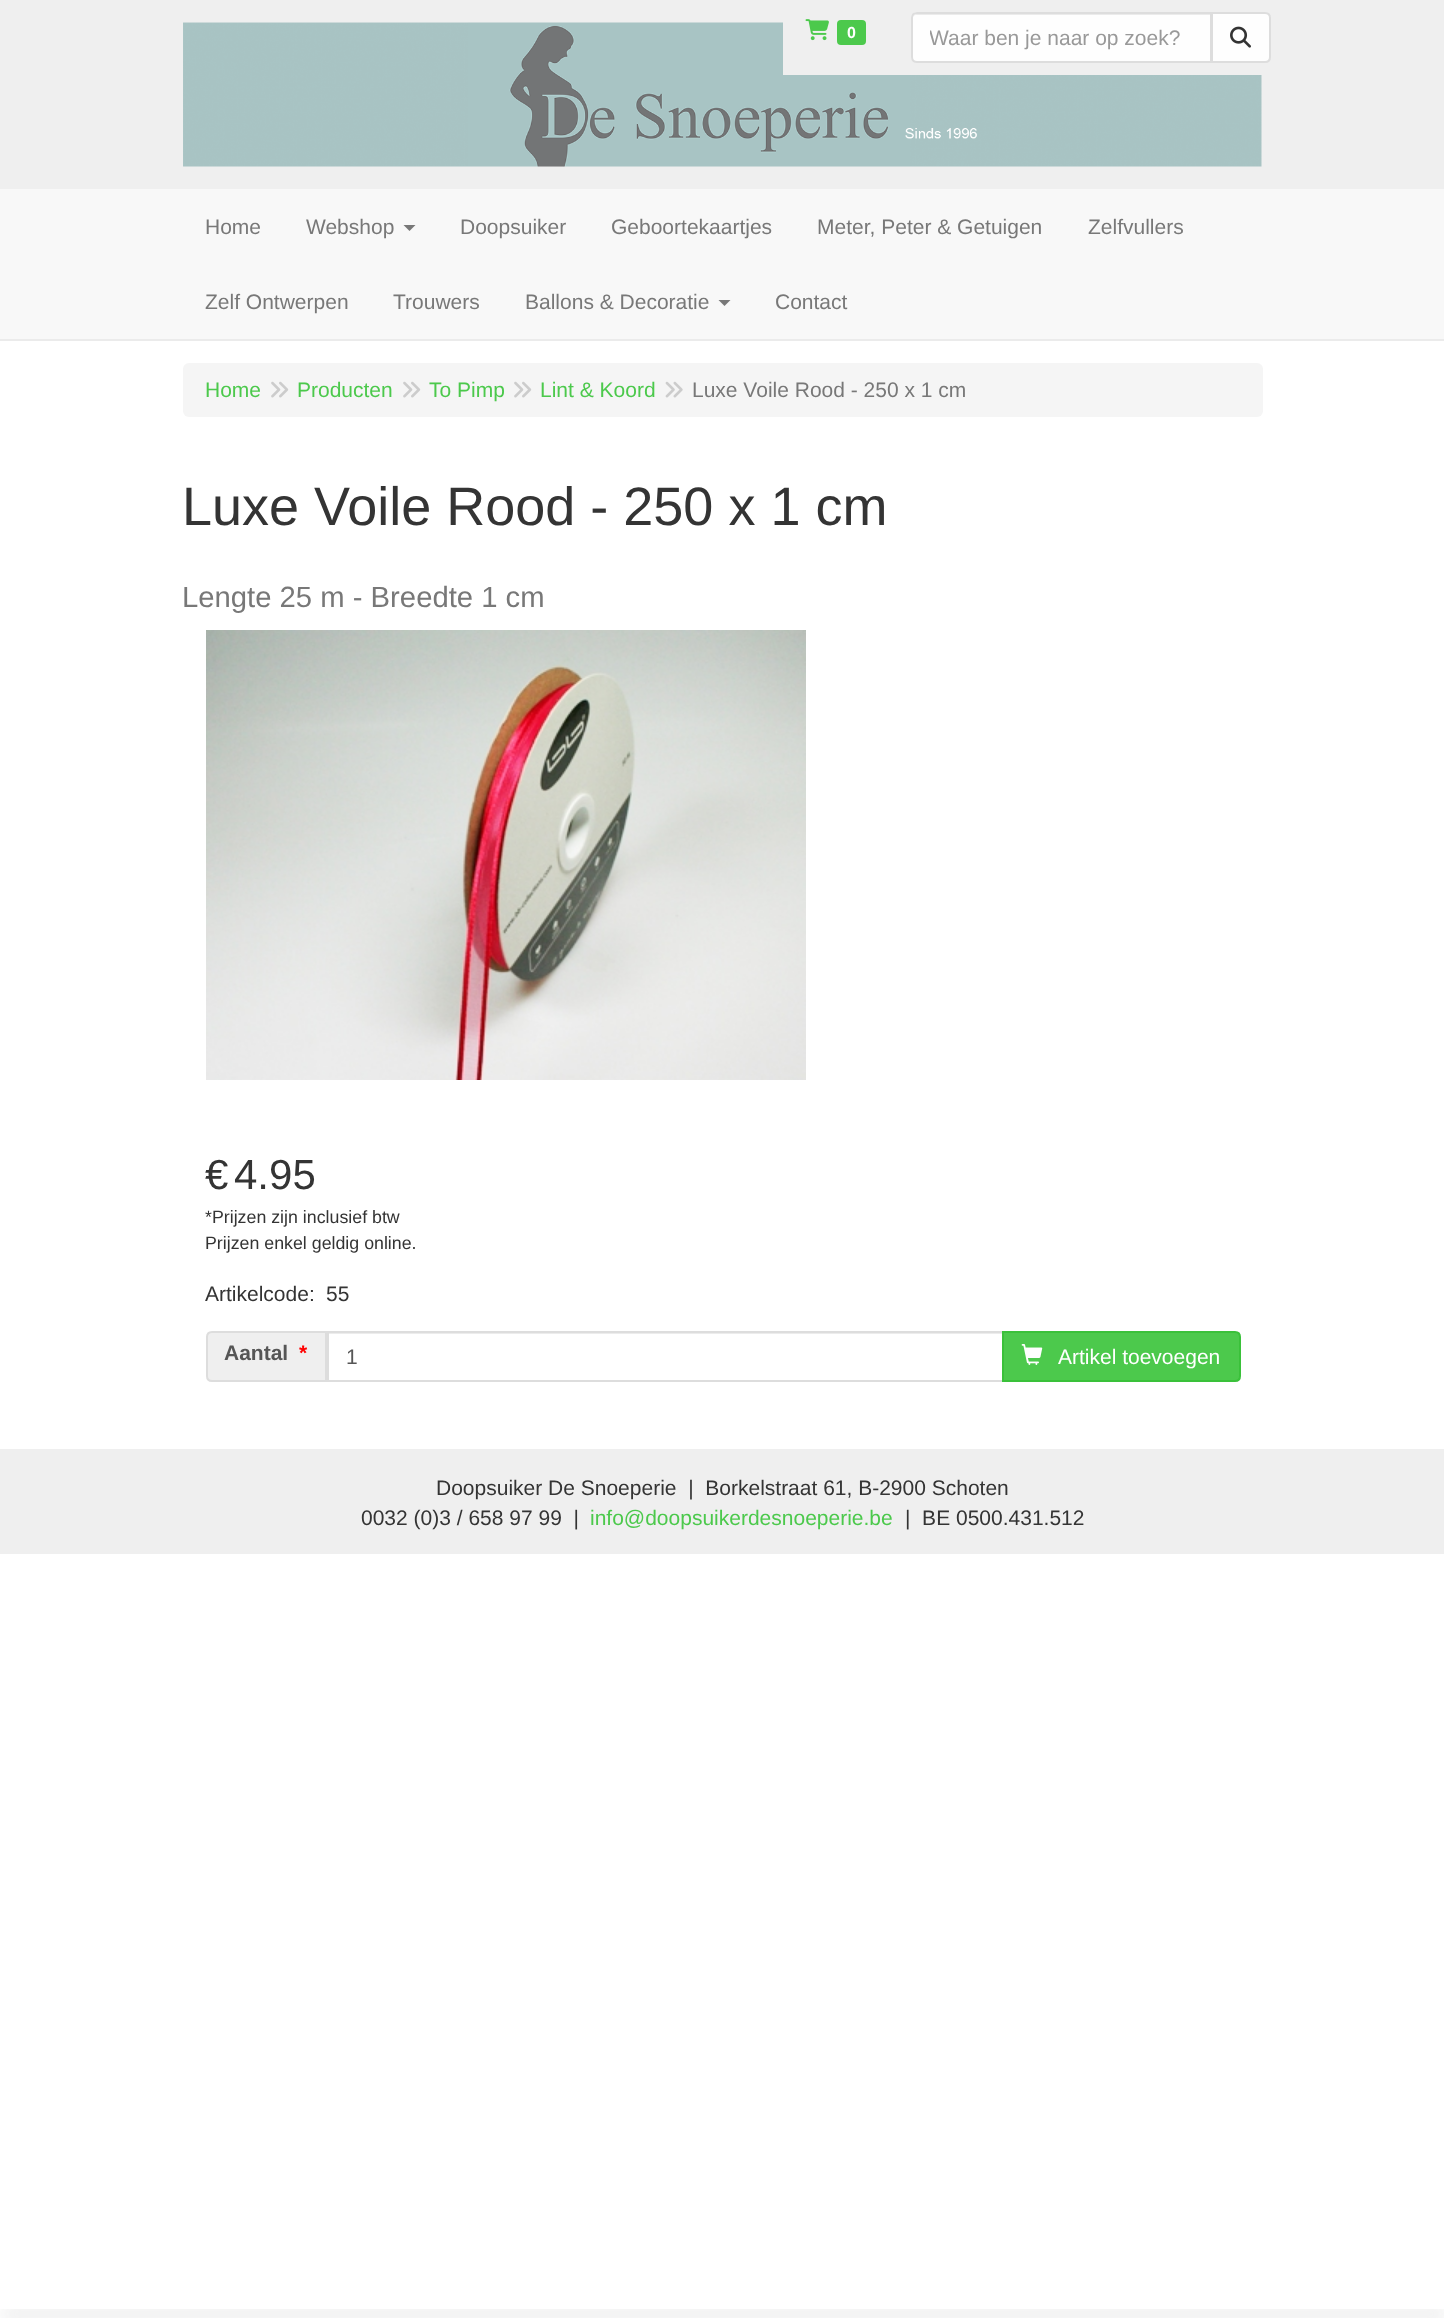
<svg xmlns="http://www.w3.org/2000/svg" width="1444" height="2318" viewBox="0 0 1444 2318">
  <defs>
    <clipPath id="clip1"><rect x="930" y="26" width="266" height="24"/></clipPath>
    <filter id="blur1" x="-50%" y="-200%" width="200%" height="500%"><feGaussianBlur stdDeviation="9"/></filter>
  </defs>
  <rect width="100%" height="100%" fill="#ffffff"/>
  <rect x="0" y="0" width="1444" height="189" fill="#efefef"/>
  <image x="183" y="22" width="1079" height="145" href="img1.png"/>
  <rect x="783" y="22" width="479" height="53" fill="#efefef"/>
  <image x="805" y="19" width="24" height="22" href="img2.png"/>
  <rect x="837" y="20" width="29" height="25" rx="4" fill="#4cc94c"/>
  <text x="847" y="38" font-family="Liberation Sans" font-size="16" font-weight="bold" fill="#ffffff">0</text>
  <path d="M917 12H1212V63H917C913.5 63 911 60.5 911 57V18C911 14.5 913.5 12 917 12Z" fill="#fefefe"/>
  <path d="M916 15H1210V62H1211V14H917C914 14 912 17 912 20C912 17 914 15 916 15Z" fill="#ebebeb"/>
  <path d="M917 13H1211V62H917C914 62 912 60 912 57V18C912 15 914 13 917 13Z" fill="none" stroke="#dddddd" stroke-width="2"/>
  <g clip-path="url(#clip1)">
    <text x="929" y="45" font-family="Liberation Sans" font-size="21" fill="#999999">Waar ben je naar op zoek?</text>
  </g>
  <path d="M1212 13H1265C1268 13 1270 15 1270 18V57C1270 60 1268 62 1265 62H1212Z" fill="#fefefe" stroke="#dddddd" stroke-width="2"/>
  <image x="1230" y="26" width="21" height="22" href="img3.png"/>
  <rect x="0" y="189" width="1444" height="150" fill="#f8f8f8"/>
  <rect x="0" y="339" width="1444" height="2" fill="#ebebeb"/>
  <text x="205" y="234" font-family="Liberation Sans" font-size="21" fill="#787878">Home</text>
  <text x="306" y="234" font-family="Liberation Sans" font-size="21" fill="#787878">Webshop</text>
  <path d="M403.5 225H415.5L409.5 231Z" fill="#787878"/>
  <text x="460" y="234" font-family="Liberation Sans" font-size="21" fill="#787878">Doopsuiker</text>
  <text x="611" y="234" font-family="Liberation Sans" font-size="21" fill="#787878">Geboortekaartjes</text>
  <text x="817" y="234" font-family="Liberation Sans" font-size="21" fill="#787878">Meter, Peter &amp; Getuigen</text>
  <text x="1088" y="234" font-family="Liberation Sans" font-size="21" fill="#787878">Zelfvullers</text>
  <text x="205" y="309" font-family="Liberation Sans" font-size="21" fill="#787878">Zelf Ontwerpen</text>
  <text x="393" y="309" font-family="Liberation Sans" font-size="21" fill="#787878">Trouwers</text>
  <text x="525" y="309" font-family="Liberation Sans" font-size="21" fill="#787878">Ballons &amp; Decoratie</text>
  <path d="M718.5 300H730.5L724.5 306Z" fill="#787878"/>
  <text x="775" y="309" font-family="Liberation Sans" font-size="21" fill="#787878">Contact</text>
  <rect x="183" y="363" width="1080" height="54" rx="6" fill="#f5f5f5"/>
  <text x="205" y="397" font-family="Liberation Sans" font-size="21" fill="#4cc94c">Home</text>
  <image x="271" y="381" width="18" height="17" href="img4.png"/>
  <text x="297" y="397" font-family="Liberation Sans" font-size="21" fill="#4cc94c">Producten</text>
  <image x="403" y="381" width="18" height="17" href="img4.png"/>
  <text x="429" y="397" font-family="Liberation Sans" font-size="21" fill="#4cc94c">To Pimp</text>
  <image x="514" y="381" width="18" height="17" href="img4.png"/>
  <text x="540" y="397" font-family="Liberation Sans" font-size="21" fill="#4cc94c">Lint &amp; Koord</text>
  <image x="665" y="381" width="18" height="17" href="img5.png"/>
  <text x="692" y="397" font-family="Liberation Sans" font-size="21" fill="#787878">Luxe Voile Rood - 250 x 1 cm</text>
  <text x="182" y="525" font-family="Liberation Sans" font-size="54" fill="#343434">Luxe Voile Rood - 250 x 1 cm</text>
  <text x="182" y="607" font-family="Liberation Sans" font-size="29.25" fill="#787878">Lengte 25 m - Breedte 1 cm</text>
  <image x="206" y="630" width="600" height="450" href="img6.png"/>
  <text x="205" y="1189" font-family="Liberation Sans" font-size="42" fill="#343434">€</text>
  <text x="234" y="1189" font-family="Liberation Sans" font-size="42" fill="#343434">4.95</text>
  <text x="205" y="1223" font-family="Liberation Sans" font-size="17.8" fill="#343434">*Prijzen zijn inclusief btw</text>
  <text x="205" y="1249" font-family="Liberation Sans" font-size="17.8" fill="#343434">Prijzen enkel geldig online.</text>
  <text x="205" y="1301" font-family="Liberation Sans" font-size="21" fill="#343434">Artikelcode:</text>
  <text x="326" y="1301" font-family="Liberation Sans" font-size="21" fill="#343434">55</text>
  <path d="M212 1332H326V1381H212C209 1381 207 1379 207 1376V1337C207 1334 209 1332 212 1332Z" fill="#efefef" stroke="#dddddd" stroke-width="2"/>
  <text x="224" y="1360" font-family="Liberation Sans" font-size="21" font-weight="bold" fill="#565656">Aantal</text>
  <text x="299" y="1360" font-family="Liberation Sans" font-size="21" font-weight="bold" fill="#ff0000">*</text>
  <rect x="329" y="1333" width="673" height="1" fill="#ececec"/>
  <rect x="328" y="1332" width="675" height="49" fill="none" stroke="#dddddd" stroke-width="2"/>
  <text x="346" y="1364" font-family="Liberation Sans" font-size="21" fill="#565656">1</text>
  <path d="M1003 1332H1235C1238 1332 1240 1334 1240 1337V1376C1240 1379 1238 1381 1235 1381H1003Z" fill="#4cc94c" stroke="#3ac13a" stroke-width="2"/>
  <image x="1021" y="1344" width="22" height="21" href="img7.png"/>
  <text x="1058" y="1364" font-family="Liberation Sans" font-size="21" fill="#ffffff">Artikel toevoegen</text>
  <rect x="0" y="1449" width="1444" height="105" fill="#efefef"/>
  <text x="436" y="1495" font-family="Liberation Sans" font-size="21" fill="#343434" xml:space="preserve">Doopsuiker De Snoeperie  |  Borkelstraat 61, B-2900 Schoten</text>
  <text x="361" y="1525" font-family="Liberation Sans" font-size="21" fill="#343434" xml:space="preserve">0032 (0)3 / 658 97 99  |</text>
  <text x="590" y="1525" font-family="Liberation Sans" font-size="21" fill="#4cc94c">info@doopsuikerdesnoeperie.be</text>
  <text x="905" y="1525" font-family="Liberation Sans" font-size="21" fill="#343434" xml:space="preserve">|  BE 0500.431.512</text>
  <rect x="2" y="2313" width="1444" height="2" fill="#808080" filter="url(#blur1)"/>
</svg>
